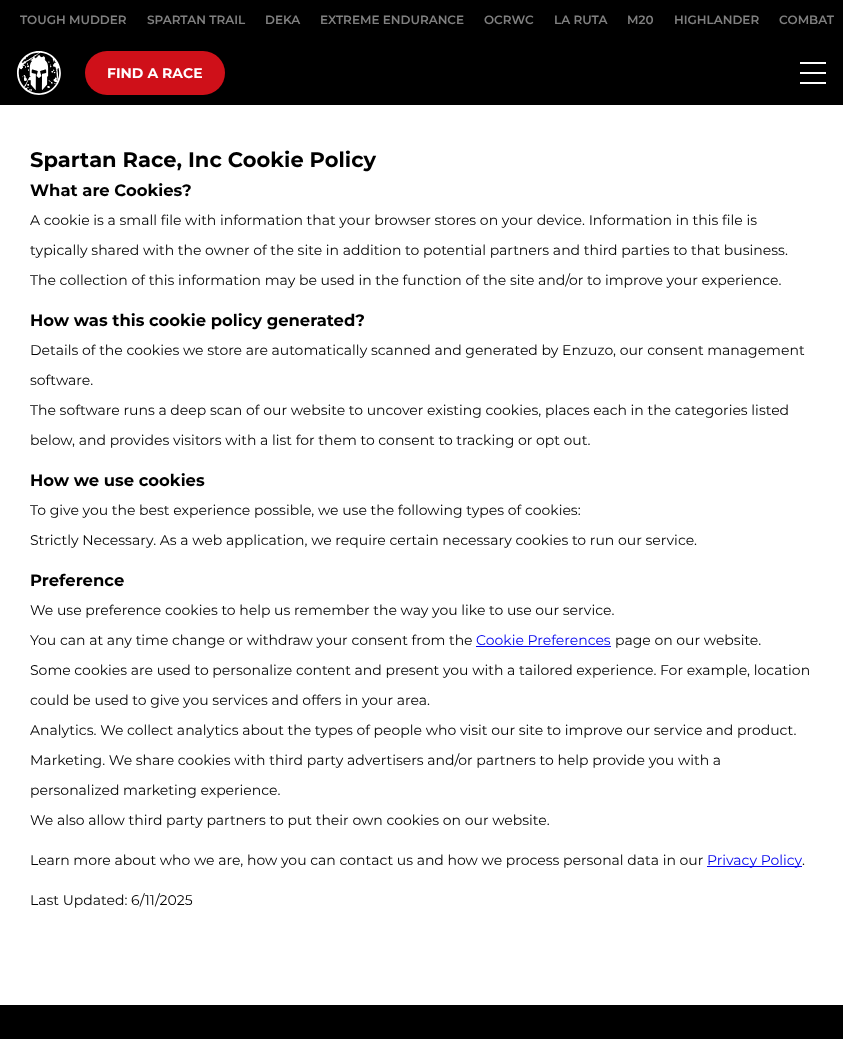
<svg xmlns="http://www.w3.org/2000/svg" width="843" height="1039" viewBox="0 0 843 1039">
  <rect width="100%" height="100%" fill="#ffffff"/>
  <rect x="0" y="0" width="843" height="105" fill="#000000"/>
  <text x="20" y="24" font-family="Montserrat" font-size="12" font-weight="600" fill="#808080">TOUGH MUDDER</text>
  <text x="147" y="24" font-family="Montserrat" font-size="12" font-weight="600" fill="#808080">SPARTAN TRAIL</text>
  <text x="265" y="24" font-family="Montserrat" font-size="12" font-weight="600" fill="#808080">DEKA</text>
  <text x="320" y="24" font-family="Montserrat" font-size="12" font-weight="600" fill="#808080">EXTREME ENDURANCE</text>
  <text x="484" y="24" font-family="Montserrat" font-size="12" font-weight="600" fill="#808080">OCRWC</text>
  <text x="554" y="24" font-family="Montserrat" font-size="12" font-weight="600" fill="#808080">LA RUTA</text>
  <text x="627" y="24" font-family="Montserrat" font-size="12" font-weight="600" fill="#808080">M20</text>
  <text x="674" y="24" font-family="Montserrat" font-size="12" font-weight="600" fill="#808080">HIGHLANDER</text>
  <text x="779" y="24" font-family="Montserrat" font-size="12" font-weight="600" fill="#808080">COMBAT</text>
  <image x="17" y="51" width="44" height="44" href="img1.png"/>
  <rect x="85" y="51" width="140" height="44" rx="22" fill="#cf1019"/>
  <text x="107" y="78" font-family="Montserrat" font-size="14" font-weight="bold" fill="#ffffff">FIND A RACE</text>
  <rect x="800" y="62" width="26" height="2" fill="#ffffff"/>
  <rect x="800" y="72" width="26" height="2" fill="#ffffff"/>
  <rect x="800" y="82" width="26" height="2" fill="#ffffff"/>
  <text x="30" y="167" font-family="Montserrat" font-size="21" font-weight="bold" fill="#000000">Spartan Race, Inc Cookie Policy</text>
  <text x="30" y="196" font-family="Montserrat" font-size="16.4" font-weight="bold" fill="#000000">What are Cookies?</text>
  <text x="30" y="225" font-family="Montserrat" font-size="14" fill="#000000">A cookie is a small file with information that your browser stores on your device. Information in this file is</text>
  <text x="30" y="255" font-family="Montserrat" font-size="14" fill="#000000">typically shared with the owner of the site in addition to potential partners and third parties to that business.</text>
  <text x="30" y="285" font-family="Montserrat" font-size="14" fill="#000000">The collection of this information may be used in the function of the site and/or to improve your experience.</text>
  <text x="30" y="326" font-family="Montserrat" font-size="16.4" font-weight="bold" fill="#000000">How was this cookie policy generated?</text>
  <text x="30" y="355" font-family="Montserrat" font-size="14" fill="#000000">Details of the cookies we store are automatically scanned and generated by Enzuzo, our consent management</text>
  <text x="30" y="385" font-family="Montserrat" font-size="14" fill="#000000">software.</text>
  <text x="30" y="415" font-family="Montserrat" font-size="14" fill="#000000">The software runs a deep scan of our website to uncover existing cookies, places each in the categories listed</text>
  <text x="30" y="445" font-family="Montserrat" font-size="14" fill="#000000">below, and provides visitors with a list for them to consent to tracking or opt out.</text>
  <text x="30" y="486" font-family="Montserrat" font-size="16.4" font-weight="bold" fill="#000000">How we use cookies</text>
  <text x="30" y="515" font-family="Montserrat" font-size="14" fill="#000000">To give you the best experience possible, we use the following types of cookies:</text>
  <text x="30" y="545" font-family="Montserrat" font-size="14" fill="#000000">Strictly Necessary. As a web application, we require certain necessary cookies to run our service.</text>
  <text x="30" y="586" font-family="Montserrat" font-size="16.4" font-weight="bold" fill="#000000">Preference</text>
  <text x="30" y="615" font-family="Montserrat" font-size="14" fill="#000000">We use preference cookies to help us remember the way you like to use our service.</text>
  <text x="30" y="645" font-family="Montserrat" font-size="14" fill="#000000">You can at any time change or withdraw your consent from the</text>
  <text x="476" y="645" font-family="Montserrat" font-size="14" fill="#0000ee">Cookie Preferences</text>
  <rect x="476" y="646" width="135" height="1" fill="#0000ee"/>
  <text x="615" y="645" font-family="Montserrat" font-size="14" fill="#000000">page on our website.</text>
  <text x="30" y="675" font-family="Montserrat" font-size="14" fill="#000000">Some cookies are used to personalize content and present you with a tailored experience. For example, location</text>
  <text x="30" y="705" font-family="Montserrat" font-size="14" fill="#000000">could be used to give you services and offers in your area.</text>
  <text x="30" y="735" font-family="Montserrat" font-size="14" fill="#000000">Analytics. We collect analytics about the types of people who visit our site to improve our service and product.</text>
  <text x="30" y="765" font-family="Montserrat" font-size="14" fill="#000000">Marketing. We share cookies with third party advertisers and/or partners to help provide you with a</text>
  <text x="30" y="795" font-family="Montserrat" font-size="14" fill="#000000">personalized marketing experience.</text>
  <text x="30" y="825" font-family="Montserrat" font-size="14" fill="#000000">We also allow third party partners to put their own cookies on our website.</text>
  <text x="30" y="865" font-family="Montserrat" font-size="14" fill="#000000">Learn more about who we are, how you can contact us and how we process personal data in our</text>
  <rect x="707" y="866" width="95" height="1" fill="#0000ee"/>
  <text x="707" y="865" font-family="Montserrat" font-size="14" fill="#0000ee">Privacy Policy</text>
  <text x="802" y="865" font-family="Montserrat" font-size="14" fill="#000000">.</text>
  <text x="30" y="905" font-family="Montserrat" font-size="14" fill="#000000">Last Updated: 6/11/2025</text>
  <rect x="0" y="1005" width="843" height="34" fill="#000000"/>
</svg>
